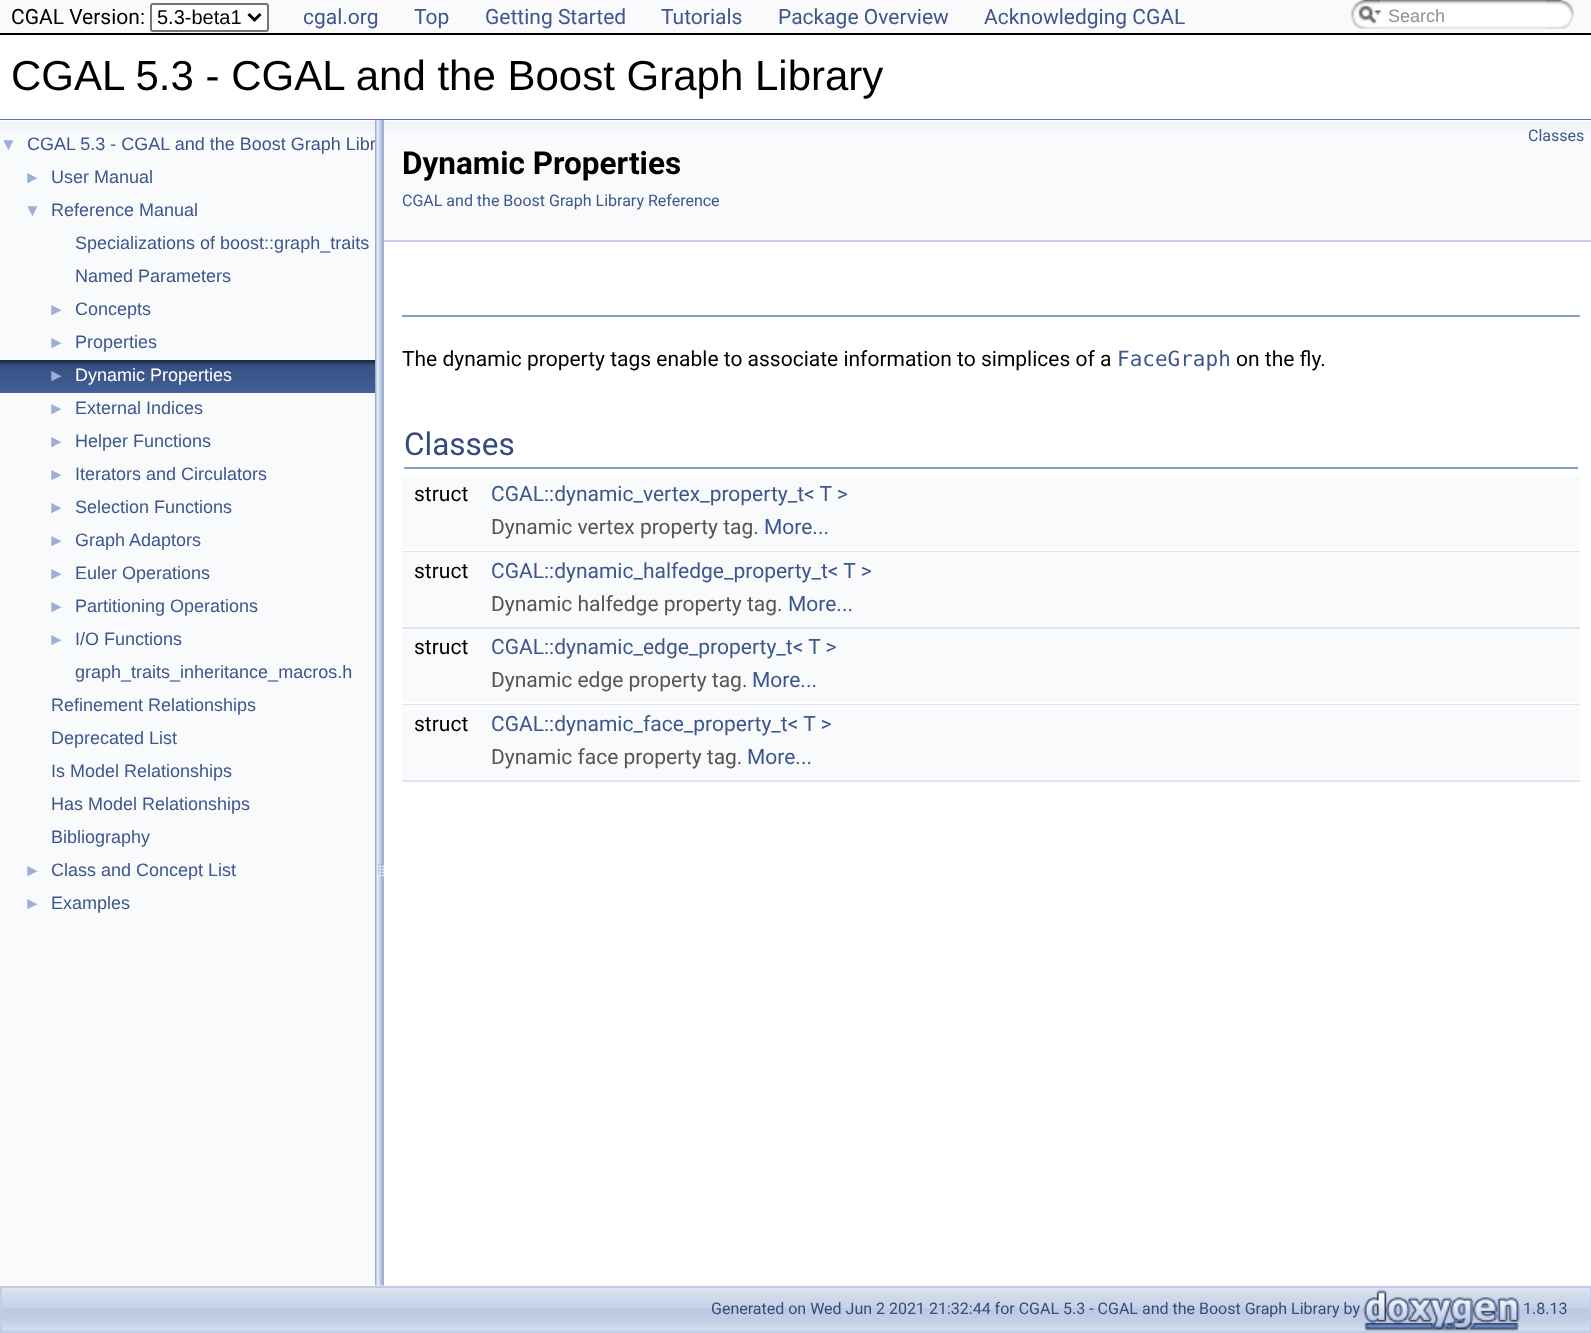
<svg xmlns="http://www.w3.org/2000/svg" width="1591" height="1333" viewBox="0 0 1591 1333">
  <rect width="100%" height="100%" fill="#ffffff"/>
  <rect x="0" y="0" width="1591" height="33" fill="#faf9fb"/>
  <rect x="0" y="33" width="1591" height="2" fill="#000000"/>
  <text x="11" y="24" font-family="Roboto" font-size="21" fill="#000000">CGAL Version:</text>
  <rect x="151" y="4" width="117" height="27" rx="2" fill="#ffffff" stroke="#767676" stroke-width="2"/>
  <path d="M248.5 14L254.5 20L260.5 14" fill="none" stroke="#000000" stroke-width="3"/>
  <text x="157" y="24" font-family="Liberation Sans" font-size="20" fill="#000000">5.3-beta1</text>
  <text x="303" y="24" font-family="Roboto" font-size="21" fill="#3d578c">cgal.org</text>
  <text x="414" y="24" font-family="Roboto" font-size="21" fill="#3d578c">Top</text>
  <text x="485" y="24" font-family="Roboto" font-size="21" fill="#3d578c">Getting Started</text>
  <text x="661" y="24" font-family="Roboto" font-size="21" fill="#3d578c">Tutorials</text>
  <text x="778" y="24" font-family="Roboto" font-size="21" fill="#3d578c">Package Overview</text>
  <text x="984" y="24" font-family="Roboto" font-size="21" fill="#3d578c">Acknowledging CGAL</text>
  <image x="1351" y="0" width="31" height="29" href="img1.png"/>
  <image x="1358" y="5" width="24" height="20" href="img2.png"/>
  <image x="1381" y="0" width="176" height="29" href="img3.png"/>
  <text x="1388" y="22" font-family="Liberation Sans" font-size="18" fill="#909090">Search</text>
  <image x="1546" y="0" width="28" height="29" href="img4.png"/>
  <rect x="0" y="119" width="1591" height="1" fill="#5373b4"/>
  <text x="11" y="90" font-family="Liberation Sans" font-size="42" fill="#000000">CGAL 5.3 - CGAL and the Boost Graph Library</text>
  <image x="2" y="1285" width="1589" height="47" href="img9.png"/>
  <rect x="0" y="132" width="375" height="1154" fill="#f9fafc"/>
  <image x="0" y="120" width="375" height="12" href="img5.png"/>
  <text x="0" y="150" font-family="Liberation Sans" font-size="17" fill="#9cafd4">▼</text>
  <text x="27" y="150" font-family="Liberation Sans" font-size="18" fill="#3d578c">CGAL 5.3 - CGAL and the Boost Graph Libr</text>
  <text x="24" y="183" font-family="Liberation Sans" font-size="17" fill="#9cafd4">►</text>
  <text x="51" y="183" font-family="Liberation Sans" font-size="18" fill="#3d578c">User Manual</text>
  <text x="24" y="216" font-family="Liberation Sans" font-size="17" fill="#9cafd4">▼</text>
  <text x="51" y="216" font-family="Liberation Sans" font-size="18" fill="#3d578c">Reference Manual</text>
  <text x="75" y="249" font-family="Liberation Sans" font-size="18" fill="#3d578c">Specializations of boost::graph_traits</text>
  <text x="75" y="282" font-family="Liberation Sans" font-size="18" fill="#3d578c">Named Parameters</text>
  <text x="48" y="315" font-family="Liberation Sans" font-size="17" fill="#9cafd4">►</text>
  <text x="75" y="315" font-family="Liberation Sans" font-size="18" fill="#3d578c">Concepts</text>
  <text x="48" y="348" font-family="Liberation Sans" font-size="17" fill="#9cafd4">►</text>
  <text x="75" y="348" font-family="Liberation Sans" font-size="18" fill="#3d578c">Properties</text>
  <image x="0" y="360" width="375" height="33" href="img6.png"/>
  <text x="48" y="381" font-family="Liberation Sans" font-size="17" fill="#9cafd4">►</text>
  <text x="75" y="381" font-family="Liberation Sans" font-size="18" fill="#ffffff">Dynamic Properties</text>
  <text x="48" y="414" font-family="Liberation Sans" font-size="17" fill="#9cafd4">►</text>
  <text x="75" y="414" font-family="Liberation Sans" font-size="18" fill="#3d578c">External Indices</text>
  <text x="48" y="447" font-family="Liberation Sans" font-size="17" fill="#9cafd4">►</text>
  <text x="75" y="447" font-family="Liberation Sans" font-size="18" fill="#3d578c">Helper Functions</text>
  <text x="48" y="480" font-family="Liberation Sans" font-size="17" fill="#9cafd4">►</text>
  <text x="75" y="480" font-family="Liberation Sans" font-size="18" fill="#3d578c">Iterators and Circulators</text>
  <text x="48" y="513" font-family="Liberation Sans" font-size="17" fill="#9cafd4">►</text>
  <text x="75" y="513" font-family="Liberation Sans" font-size="18" fill="#3d578c">Selection Functions</text>
  <text x="48" y="546" font-family="Liberation Sans" font-size="17" fill="#9cafd4">►</text>
  <text x="75" y="546" font-family="Liberation Sans" font-size="18" fill="#3d578c">Graph Adaptors</text>
  <text x="48" y="579" font-family="Liberation Sans" font-size="17" fill="#9cafd4">►</text>
  <text x="75" y="579" font-family="Liberation Sans" font-size="18" fill="#3d578c">Euler Operations</text>
  <text x="48" y="612" font-family="Liberation Sans" font-size="17" fill="#9cafd4">►</text>
  <text x="75" y="612" font-family="Liberation Sans" font-size="18" fill="#3d578c">Partitioning Operations</text>
  <text x="48" y="645" font-family="Liberation Sans" font-size="17" fill="#9cafd4">►</text>
  <text x="75" y="645" font-family="Liberation Sans" font-size="18" fill="#3d578c">I/O Functions</text>
  <text x="75" y="678" font-family="Liberation Sans" font-size="18" fill="#3d578c">graph_traits_inheritance_macros.h</text>
  <text x="51" y="711" font-family="Liberation Sans" font-size="18" fill="#3d578c">Refinement Relationships</text>
  <text x="51" y="744" font-family="Liberation Sans" font-size="18" fill="#3d578c">Deprecated List</text>
  <text x="51" y="777" font-family="Liberation Sans" font-size="18" fill="#3d578c">Is Model Relationships</text>
  <text x="51" y="810" font-family="Liberation Sans" font-size="18" fill="#3d578c">Has Model Relationships</text>
  <text x="51" y="843" font-family="Liberation Sans" font-size="18" fill="#3d578c">Bibliography</text>
  <text x="24" y="876" font-family="Liberation Sans" font-size="17" fill="#9cafd4">►</text>
  <text x="51" y="876" font-family="Liberation Sans" font-size="18" fill="#3d578c">Class and Concept List</text>
  <text x="24" y="909" font-family="Liberation Sans" font-size="17" fill="#9cafd4">►</text>
  <text x="51" y="909" font-family="Liberation Sans" font-size="18" fill="#3d578c">Examples</text>
  <image x="375" y="120" width="9" height="1166" href="img7.png"/>
  <rect x="384" y="132" width="1207" height="108" fill="#f9fafc"/>
  <image x="384" y="120" width="1207" height="12" href="img8.png"/>
  <rect x="384" y="240" width="1207" height="2" fill="#c4cfe5"/>
  <text x="1528" y="141" font-family="Roboto" font-size="16" fill="#3d578c">Classes</text>
  <text x="402" y="174" font-family="Roboto" font-size="31.5" font-weight="bold" fill="#000000">Dynamic Properties</text>
  <text x="402" y="206" font-family="Roboto" font-size="16" fill="#3d578c">CGAL and the Boost Graph Library Reference</text>
  <rect x="402" y="315" width="1178" height="2" fill="#879ecb"/>
  <text x="402" y="366" font-family="Roboto" font-size="21" fill="#000000">The dynamic property tags enable to associate information to simplices of a</text>
  <text x="1117" y="366" font-family="DejaVu Sans Mono" font-size="21" fill="#3d578c">FaceGraph</text>
  <text x="1236" y="366" font-family="Roboto" font-size="21" fill="#000000">on the fly.</text>
  <rect x="404" y="467" width="1174" height="2" fill="#879ecb"/>
  <text x="404" y="455" font-family="Roboto" font-size="31.5" fill="#354c7b">Classes</text>
  <rect x="402" y="476" width="1178" height="34" fill="#f9fafc"/>
  <text x="414" y="501" font-family="Roboto" font-size="21" fill="#000000">struct</text>
  <text x="491" y="501" font-family="Roboto" font-size="21" fill="#3d578c">CGAL::dynamic_vertex_property_t&lt; T &gt;</text>
  <rect x="402" y="510" width="1178" height="39" fill="#f9fafc"/>
  <text x="491" y="534" font-family="Roboto" font-size="21" fill="#555555">Dynamic vertex property tag.</text>
  <text x="764" y="534" font-family="Roboto" font-size="21" fill="#3d578c">More...</text>
  <rect x="402" y="551" width="1178" height="1" fill="#dee4f0"/>
  <rect x="402" y="552" width="1178" height="35" fill="#f9fafc"/>
  <text x="414" y="578" font-family="Roboto" font-size="21" fill="#000000">struct</text>
  <text x="491" y="578" font-family="Roboto" font-size="21" fill="#3d578c">CGAL::dynamic_halfedge_property_t&lt; T &gt;</text>
  <rect x="402" y="587" width="1178" height="39" fill="#f9fafc"/>
  <text x="491" y="611" font-family="Roboto" font-size="21" fill="#555555">Dynamic halfedge property tag.</text>
  <text x="788" y="611" font-family="Roboto" font-size="21" fill="#3d578c">More...</text>
  <rect x="402" y="627" width="1178" height="2" fill="#dee4f0"/>
  <rect x="402" y="629" width="1178" height="34" fill="#f9fafc"/>
  <text x="414" y="654" font-family="Roboto" font-size="21" fill="#000000">struct</text>
  <text x="491" y="654" font-family="Roboto" font-size="21" fill="#3d578c">CGAL::dynamic_edge_property_t&lt; T &gt;</text>
  <rect x="402" y="663" width="1178" height="39" fill="#f9fafc"/>
  <text x="491" y="687" font-family="Roboto" font-size="21" fill="#555555">Dynamic edge property tag.</text>
  <text x="752" y="687" font-family="Roboto" font-size="21" fill="#3d578c">More...</text>
  <rect x="402" y="704" width="1178" height="1" fill="#dee4f0"/>
  <rect x="402" y="705" width="1178" height="35" fill="#f9fafc"/>
  <text x="414" y="731" font-family="Roboto" font-size="21" fill="#000000">struct</text>
  <text x="491" y="731" font-family="Roboto" font-size="21" fill="#3d578c">CGAL::dynamic_face_property_t&lt; T &gt;</text>
  <rect x="402" y="740" width="1178" height="39" fill="#f9fafc"/>
  <text x="491" y="764" font-family="Roboto" font-size="21" fill="#555555">Dynamic face property tag.</text>
  <text x="747" y="764" font-family="Roboto" font-size="21" fill="#3d578c">More...</text>
  <rect x="402" y="780" width="1178" height="2" fill="#dee4f0"/>
  <rect x="1" y="1287" width="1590" height="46" fill="none" stroke="#c2cde4" stroke-width="2"/>
  <text x="711" y="1314" font-family="Roboto" font-size="16" fill="#354c7b">Generated on Wed Jun 2 2021 21:32:44 for CGAL 5.3 - CGAL and the Boost Graph Library by</text>
  <image x="1363" y="1289" width="157" height="42" href="img10.png"/>
  <text x="1523" y="1314" font-family="Roboto" font-size="16" fill="#354c7b">1.8.13</text>
</svg>
